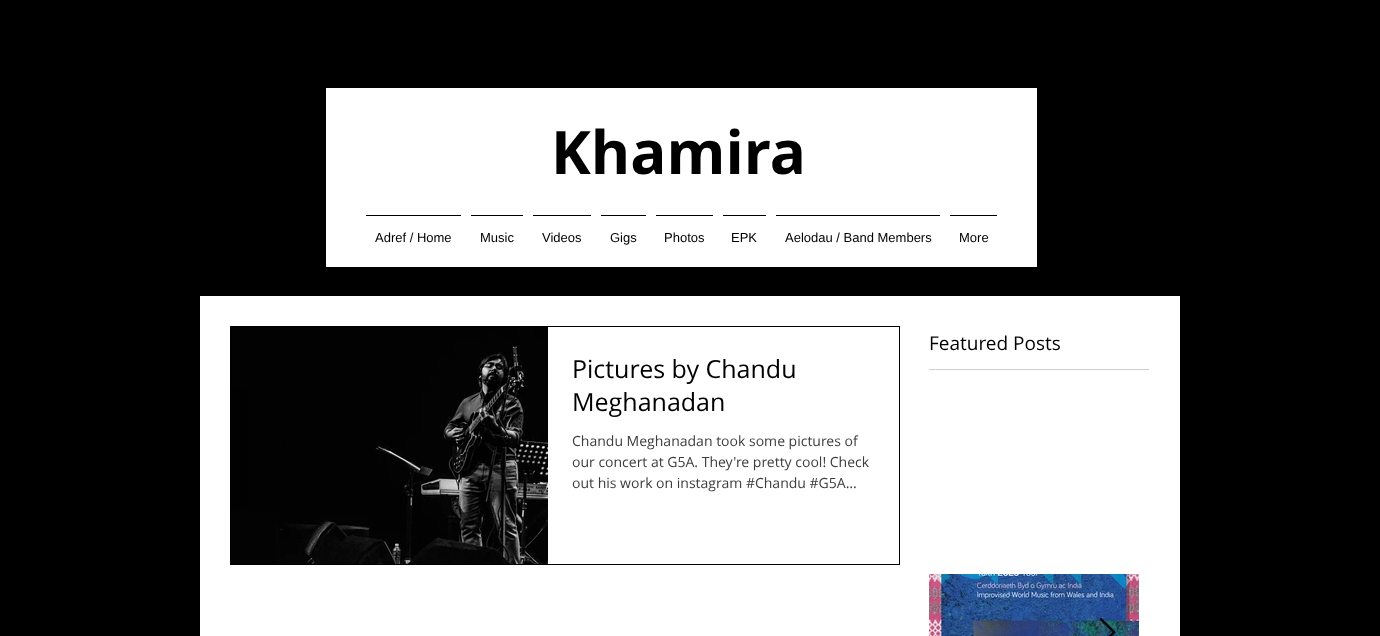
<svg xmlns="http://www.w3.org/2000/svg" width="1380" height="636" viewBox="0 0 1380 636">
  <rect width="100%" height="100%" fill="#000000"/>
  <rect x="326" y="88" width="711" height="179" fill="#ffffff"/>
  <text x="551" y="174" font-family="Open Sans" font-size="60" font-weight="bold" fill="#000000">Khamira</text>
  <rect x="366" y="215" width="95" height="1" fill="#000000"/>
  <text x="375" y="242" font-family="Liberation Sans" font-size="13" fill="#000000">Adref / Home</text>
  <rect x="471" y="215" width="52" height="1" fill="#000000"/>
  <text x="480" y="242" font-family="Liberation Sans" font-size="13" fill="#000000">Music</text>
  <rect x="533" y="215" width="58" height="1" fill="#000000"/>
  <text x="542" y="242" font-family="Liberation Sans" font-size="13" fill="#000000">Videos</text>
  <rect x="601" y="215" width="45" height="1" fill="#000000"/>
  <text x="610" y="242" font-family="Liberation Sans" font-size="13" fill="#000000">Gigs</text>
  <rect x="656" y="215" width="57" height="1" fill="#000000"/>
  <text x="664" y="242" font-family="Liberation Sans" font-size="13" fill="#000000">Photos</text>
  <rect x="723" y="215" width="43" height="1" fill="#000000"/>
  <text x="731" y="242" font-family="Liberation Sans" font-size="13" fill="#000000">EPK</text>
  <rect x="776" y="215" width="164" height="1" fill="#000000"/>
  <text x="785" y="242" font-family="Liberation Sans" font-size="13" fill="#000000">Aelodau / Band Members</text>
  <rect x="950" y="215" width="47" height="1" fill="#000000"/>
  <text x="959" y="242" font-family="Liberation Sans" font-size="13" fill="#000000">More</text>
  <rect x="200" y="296" width="980" height="340" fill="#ffffff"/>
  <text x="929" y="350" font-family="Open Sans" font-size="19" fill="#000000">Featured Posts</text>
  <rect x="230.5" y="326.5" width="669" height="238" fill="none" stroke="#000000"/>
  <image x="231" y="327" width="48" height="237" href="img1.png"/>
  <image x="279" y="327" width="269" height="237" href="img2.png"/>
  <text x="572" y="378" font-family="Open Sans" font-size="25" fill="#000000">Pictures by Chandu</text>
  <text x="572" y="411" font-family="Open Sans" font-size="25" fill="#000000">Meghanadan</text>
  <text x="572" y="446" font-family="Open Sans" font-size="14" fill="#3d3d3d">Chandu Meghanadan took some pictures of</text>
  <text x="572" y="467" font-family="Open Sans" font-size="14" fill="#3d3d3d">our concert at G5A. They're pretty cool! Check</text>
  <text x="572" y="488" font-family="Open Sans" font-size="14" fill="#3d3d3d">out his work on instagram #Chandu #G5A…</text>
  <rect x="929" y="369" width="220" height="1" fill="#d0d0d0"/>
  <image x="929" y="574" width="210" height="62" href="img3.png"/>
  <image x="1099" y="618" width="17" height="18" href="img4.png"/>
</svg>
